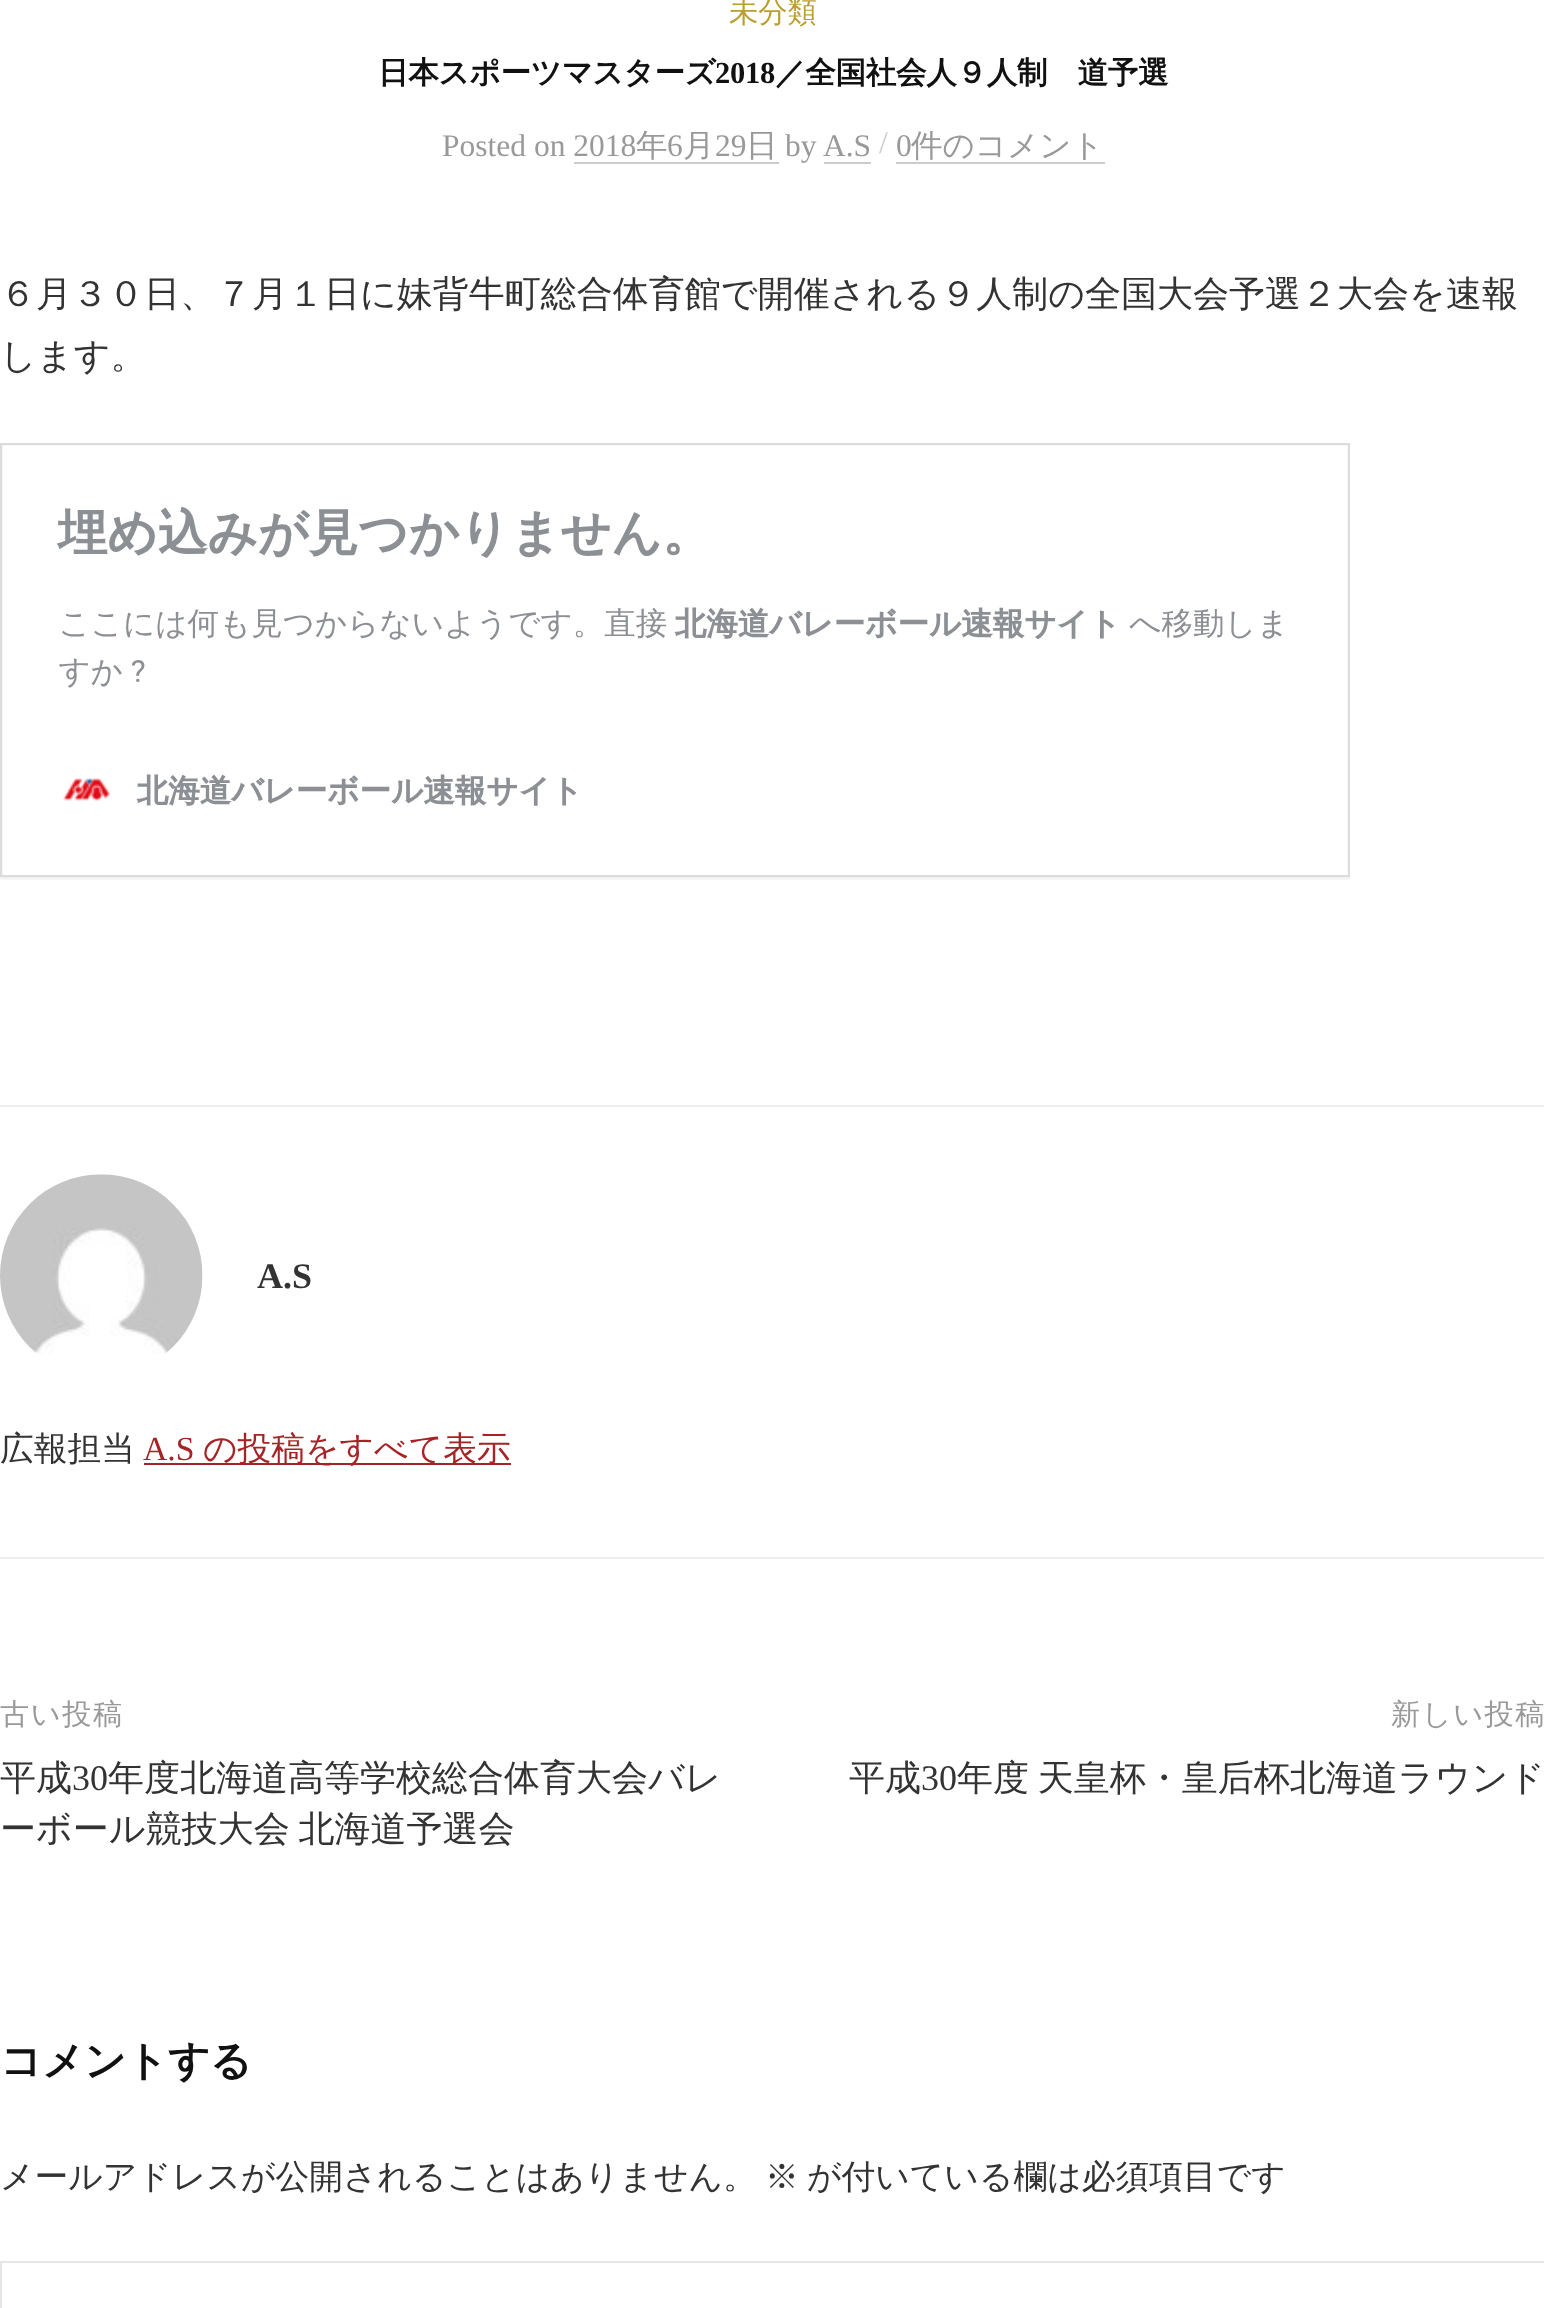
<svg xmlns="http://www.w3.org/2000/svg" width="1544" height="2308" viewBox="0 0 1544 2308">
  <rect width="100%" height="100%" fill="#ffffff"/>
  <text x="729" y="22" font-family="WenQuanYi Zen Hei" font-size="29.25" font-weight="500" fill="#ba9e30">未分類</text>
  <text x="378" y="83" font-family="WenQuanYi Zen Hei" font-size="30.5" font-weight="bold" letter-spacing="-0.25" fill="#111111">日本スポーツマスターズ</text>
  <text x="715" y="83" font-family="Liberation Serif" font-size="30.5" font-weight="bold" letter-spacing="-0.25" fill="#111111">2018</text>
  <text x="775" y="83" font-family="WenQuanYi Zen Hei" font-size="30.5" font-weight="bold" letter-spacing="-0.25" fill="#111111">／全国社会人９人制　道予選</text>
  <text x="442" y="156" font-family="Liberation Serif" font-size="31.5" fill="#999999">Posted on 2018</text>
  <text x="636" y="156" font-family="WenQuanYi Zen Hei" font-size="31.5" font-weight="500" fill="#999999">年</text>
  <text x="667" y="156" font-family="Liberation Serif" font-size="31.5" fill="#999999">6</text>
  <rect x="574" y="162" width="205" height="2" fill="#cccccc"/>
  <text x="683" y="156" font-family="WenQuanYi Zen Hei" font-size="31.5" font-weight="500" fill="#999999">月</text>
  <text x="715" y="156" font-family="Liberation Serif" font-size="31.5" fill="#999999">29</text>
  <text x="746" y="156" font-family="WenQuanYi Zen Hei" font-size="31.5" font-weight="500" fill="#999999">日</text>
  <text x="785" y="156" font-family="Liberation Serif" font-size="31.5" fill="#999999">by</text>
  <text x="823" y="156" font-family="Liberation Serif" font-size="31.5" fill="#999999">A.S</text>
  <rect x="824" y="162" width="47" height="2" fill="#cccccc"/>
  <text x="879" y="153" font-family="Liberation Serif" font-size="31.5" fill="#cccccc">/</text>
  <text x="896" y="156" font-family="Liberation Serif" font-size="31.5" fill="#999999">0</text>
  <rect x="896" y="162" width="209" height="2" fill="#cccccc"/>
  <text x="911" y="156" font-family="WenQuanYi Zen Hei" font-size="31.5" font-weight="500" fill="#999999">件のコメント</text>
  <text x="0" y="306" font-family="WenQuanYi Zen Hei" font-size="36" font-weight="500" fill="#333333">６月３０日、７月１日に妹背牛町総合体育館で開催される９人制の全国大会予選２大会を速報</text>
  <text x="0" y="368" font-family="WenQuanYi Zen Hei" font-size="36" font-weight="500" fill="#333333">します。</text>
  <image x="0" y="443" width="1350" height="437" href="img1.png"/>
  <rect x="0" y="1105" width="1544" height="2" fill="#eeeeee"/>
  <rect x="0" y="1557" width="1544" height="2" fill="#eeeeee"/>
  <image x="0" y="1174" width="203" height="180" href="img2.png"/>
  <text x="257" y="1288" font-family="Liberation Serif" font-size="36" font-weight="bold" fill="#333333">A.S</text>
  <text x="0" y="1460" font-family="WenQuanYi Zen Hei" font-size="33.75" font-weight="500" fill="#333333">広報担当</text>
  <text x="143" y="1460" font-family="Liberation Serif" font-size="33.75" fill="#a62425">A.S</text>
  <rect x="144" y="1463" width="367" height="2" fill="#a62425"/>
  <text x="203" y="1460" font-family="WenQuanYi Zen Hei" font-size="33.75" font-weight="500" fill="#a62425">の投稿をすべて表示</text>
  <text x="0" y="1724" font-family="WenQuanYi Zen Hei" font-size="29.25" font-weight="500" letter-spacing="1.5" fill="#999999">古い投稿</text>
  <text x="0" y="1790" font-family="WenQuanYi Zen Hei" font-size="36" font-weight="500" fill="#333333">平成</text>
  <text x="72" y="1790" font-family="Liberation Serif" font-size="36" fill="#333333">30</text>
  <text x="108" y="1790" font-family="WenQuanYi Zen Hei" font-size="36" font-weight="500" fill="#333333">年度北海道高等学校総合体育大会バレ</text>
  <text x="0" y="1841" word-spacing="-2" font-family="WenQuanYi Zen Hei" font-size="36" font-weight="500" fill="#333333">ーボール競技大会 北海道予選会</text>
  <text x="1391" y="1724" font-family="WenQuanYi Zen Hei" font-size="29.25" font-weight="500" letter-spacing="1.5" fill="#999999">新しい投稿</text>
  <text x="849" y="1790" font-family="WenQuanYi Zen Hei" font-size="36" font-weight="500" fill="#333333">平成</text>
  <text x="921" y="1790" font-family="Liberation Serif" font-size="36" fill="#333333">30</text>
  <text x="957" y="1790" word-spacing="-2" font-family="WenQuanYi Zen Hei" font-size="36" font-weight="500" fill="#333333">年度 天皇杯・皇后杯北海道ラウンド</text>
  <text x="0" y="2075" font-family="WenQuanYi Zen Hei" font-size="41.5" font-weight="bold" letter-spacing="-0.5" fill="#111111">コメントする</text>
  <text x="0" y="2188" font-family="WenQuanYi Zen Hei" font-size="33.75" font-weight="500" fill="#333333">メールアドレスが公開されることはありません。</text>
  <text x="765" y="2188" font-family="WenQuanYi Zen Hei" font-size="33.75" font-weight="500" fill="#333333">※</text>
  <text x="807" y="2188" font-family="WenQuanYi Zen Hei" font-size="33.75" font-weight="500" fill="#333333">が付いている欄は必須項目です</text>
  <rect x="1" y="2262" width="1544" height="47" fill="none" stroke="#e6e6e6" stroke-width="2"/>
</svg>
